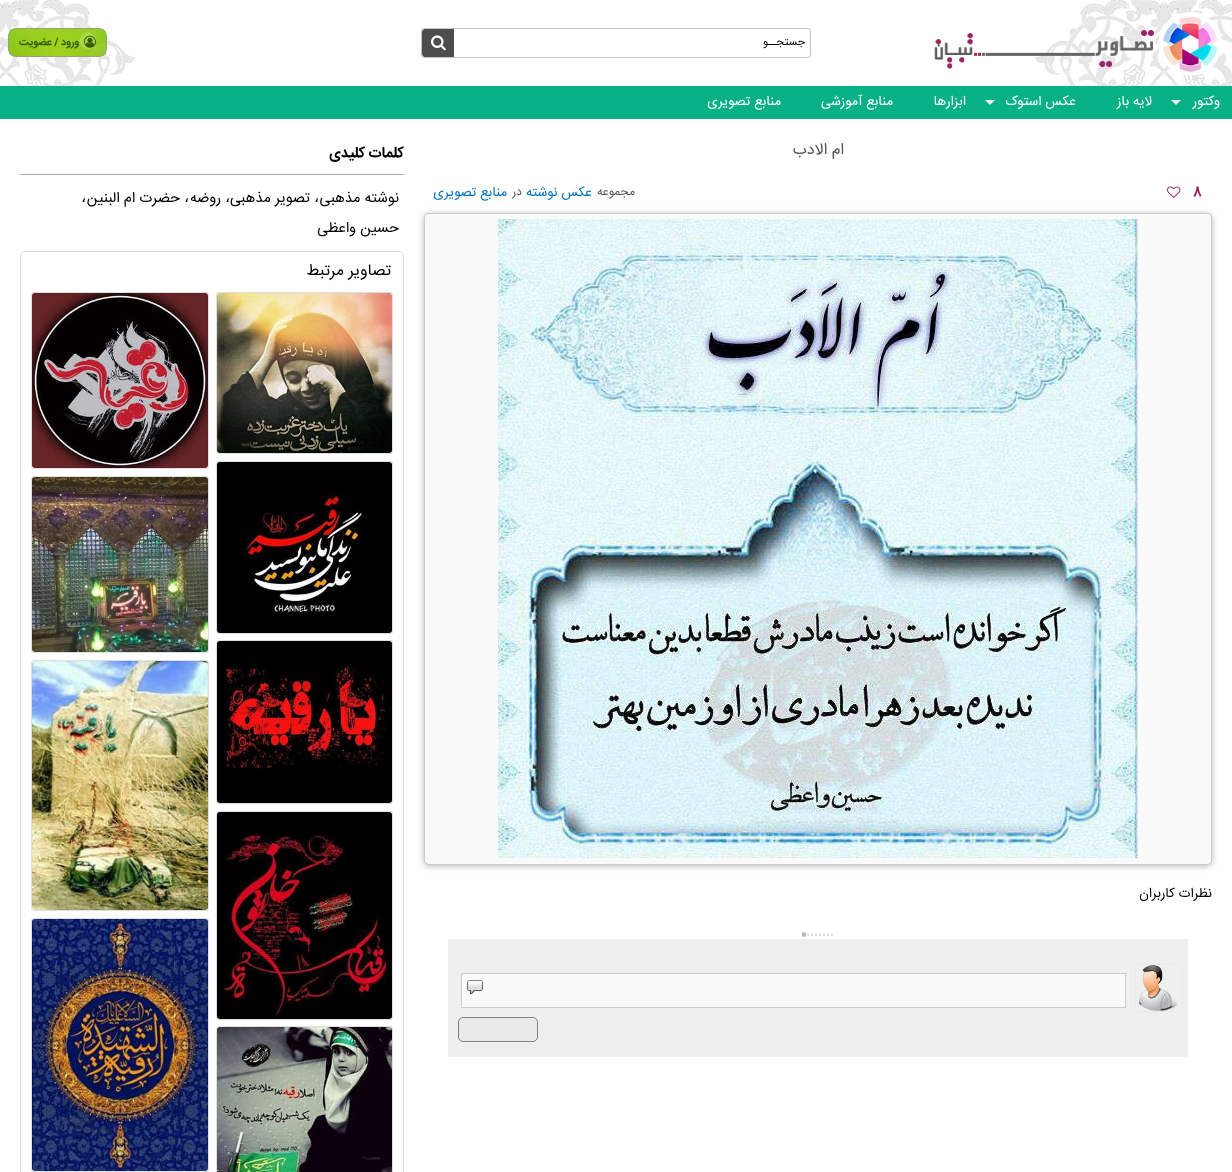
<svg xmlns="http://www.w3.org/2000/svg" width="1232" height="1172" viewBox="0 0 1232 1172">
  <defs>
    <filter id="blur1" x="-50%" y="-200%" width="200%" height="500%"><feGaussianBlur stdDeviation="3"/></filter>
  </defs>
  <rect width="100%" height="100%" fill="#ffffff"/>
  <image x="1035" y="0" width="197" height="86" href="img1.png"/>
  <image x="0" y="0" width="135" height="86" href="img2.png"/>
  <image x="934" y="12" width="288" height="64" href="img3.png"/>
  <rect x="421.5" y="28.5" width="389" height="29" rx="2.5" fill="none" stroke="#c4c4c4"/>
  <text x="805" y="45" font-family="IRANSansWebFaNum" font-size="11" direction="rtl" fill="#000000">جستجــو</text>
  <path d="M425 29H454V57H425C423.5 57 422 55.5 422 54V32C422 30.5 423.5 29 425 29Z" fill="#4d4d4d"/>
  <image x="431" y="35" width="15" height="16" href="img4.png"/>
  <image x="9" y="29" width="98" height="28" href="img5.png"/>
  <rect x="8.5" y="28.5" width="98" height="28" rx="7.5" fill="none" stroke="#96a37b"/>
  <image x="84" y="35" width="12" height="13" href="img6.png"/>
  <text x="79" y="45" font-family="IRANSansWebFaNum" font-size="10.5" font-weight="bold" direction="rtl" fill="#345903">ورود / عضویت</text>
  <rect x="0" y="86" width="1232" height="33" fill="#07b085"/>
  <text x="1220" y="105" font-family="IRANSansWebFaNum" font-size="13.5" direction="rtl" fill="#ffffff">وکتور</text>
  <path d="M1171 100H1181L1176 105Z" fill="#eeeeee"/>
  <text x="1152" y="105" font-family="IRANSansWebFaNum" font-size="13.5" direction="rtl" fill="#ffffff">لایه باز</text>
  <text x="1076" y="105" font-family="IRANSansWebFaNum" font-size="13.5" direction="rtl" fill="#ffffff">عکس استوک</text>
  <path d="M985 100H995L990 105Z" fill="#eeeeee"/>
  <text x="966" y="105" font-family="IRANSansWebFaNum" font-size="13.5" direction="rtl" fill="#ffffff">ابزارها</text>
  <text x="893" y="105" font-family="IRANSansWebFaNum" font-size="13.5" direction="rtl" fill="#ffffff">منابع آموزشی</text>
  <text x="781" y="105" font-family="IRANSansWebFaNum" font-size="13.5" direction="rtl" fill="#ffffff">منابع تصویری</text>
  <text x="844" y="154" font-family="IRANSansWebFaNum" font-size="16" direction="rtl" fill="#555555">ام الادب</text>
  <text x="1193" y="196" font-family="IRANSansWebFaNum" font-size="13.5" font-weight="bold" fill="#9b2361">8</text>
  <image x="1167" y="186" width="14" height="12" href="img7.png"/>
  <text x="635" y="195" font-family="IRANSansWebFaNum" font-size="12" direction="rtl" fill="#555555">مجموعه</text>
  <text x="592" y="196" font-family="IRANSansWebFaNum" font-size="13.5" direction="rtl" fill="#0072bc">عکس نوشته</text>
  <text x="522" y="195" font-family="IRANSansWebFaNum" font-size="12" direction="rtl" fill="#555555">در</text>
  <text x="507" y="196" font-family="IRANSansWebFaNum" font-size="13.5" direction="rtl" fill="#0072bc">منابع تصویری</text>
  <rect x="424" y="214" width="788" height="652" rx="5" fill="#888888" fill-opacity="0.6" filter="url(#blur1)"/>
  <rect x="424.5" y="213.5" width="787" height="651" rx="4.5" fill="#fafafa" stroke="#cccccc"/>
  <image x="498" y="219" width="640" height="640" href="img8.png"/>
  <text x="1212" y="897" font-family="IRANSansWebFaNum" font-size="13.5" direction="rtl" fill="#000000">نظرات کاربران</text>
  <image x="802" y="932" width="31" height="5" href="img9.png"/>
  <rect x="448" y="939" width="740" height="118" fill="#efefef"/>
  <rect x="1135.5" y="964.5" width="47" height="47" rx="2.5" fill="none" stroke="#eaeaea"/>
  <image x="1139" y="965" width="39" height="46" href="img10.png"/>
  <rect x="462" y="974" width="663" height="33" fill="#fafafa"/>
  <image x="467" y="980" width="16" height="15" href="img11.png"/>
  <rect x="461.5" y="973.5" width="664" height="34" fill="none" stroke="#cccccc"/>
  <rect x="458.5" y="1017.5" width="79" height="24" rx="4.5" fill="#eaeaea" stroke="#808080"/>
  <rect x="20" y="174" width="384" height="1" fill="#a6a9ac"/>
  <text x="404" y="157" font-family="IRANSansWebFaNum" font-size="14.75" font-weight="bold" direction="rtl" fill="#000000">کلمات کلیدی</text>
  <text x="399" y="202" font-family="IRANSansWebFaNum" font-size="14.75" direction="rtl" fill="#000000">نوشته مذهبی</text>
  <text x="314" y="202" font-family="DejaVu Sans" font-size="16" fill="#000000">،</text>
  <text x="310" y="202" font-family="IRANSansWebFaNum" font-size="14.75" direction="rtl" fill="#000000">تصویر مذهبی</text>
  <text x="225" y="202" font-family="DejaVu Sans" font-size="16" fill="#000000">،</text>
  <text x="221" y="202" font-family="IRANSansWebFaNum" font-size="14.75" direction="rtl" fill="#000000">روضه</text>
  <text x="184" y="202" font-family="DejaVu Sans" font-size="16" fill="#000000">،</text>
  <text x="180" y="202" font-family="IRANSansWebFaNum" font-size="14.75" direction="rtl" fill="#000000">حضرت ام البنین</text>
  <text x="81" y="202" font-family="DejaVu Sans" font-size="16" fill="#000000">،</text>
  <text x="399" y="232" font-family="IRANSansWebFaNum" font-size="14.75" direction="rtl" fill="#000000">حسین واعظی</text>
  <rect x="20.5" y="251.5" width="383" height="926" rx="4.5" fill="none" stroke="#d8d9da"/>
  <text x="391" y="275" font-family="IRANSansWebFaNum" font-size="16" direction="rtl" fill="#000000">تصاویر مرتبط</text>
  <rect x="216.5" y="292.5" width="176" height="161" rx="2" fill="none" stroke="#dfdfdf"/>
  <image x="217" y="293" width="175" height="160" href="img12.png"/>
  <rect x="31.5" y="292.5" width="177" height="176" rx="2" fill="none" stroke="#dfdfdf"/>
  <image x="32" y="293" width="176" height="175" href="img13.png"/>
  <rect x="216.5" y="461.5" width="176" height="172" rx="2" fill="none" stroke="#dfdfdf"/>
  <image x="217" y="462" width="175" height="171" href="img14.png"/>
  <rect x="31.5" y="476.5" width="177" height="176" rx="2" fill="none" stroke="#dfdfdf"/>
  <image x="32" y="477" width="176" height="175" href="img15.png"/>
  <rect x="216.5" y="640.5" width="176" height="163" rx="2" fill="none" stroke="#dfdfdf"/>
  <image x="217" y="641" width="175" height="162" href="img16.png"/>
  <rect x="31.5" y="660.5" width="177" height="250" rx="2" fill="none" stroke="#dfdfdf"/>
  <image x="32" y="661" width="176" height="249" href="img17.png"/>
  <rect x="216.5" y="811.5" width="176" height="208" rx="2" fill="none" stroke="#dfdfdf"/>
  <image x="217" y="812" width="175" height="207" href="img18.png"/>
  <rect x="31.5" y="918.5" width="177" height="253" rx="2" fill="none" stroke="#dfdfdf"/>
  <image x="32" y="919" width="176" height="252" href="img19.png"/>
  <rect x="216.5" y="1026.5" width="176" height="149" rx="2" fill="none" stroke="#dfdfdf"/>
  <image x="217" y="1027" width="175" height="145" href="img20.png"/>
</svg>
